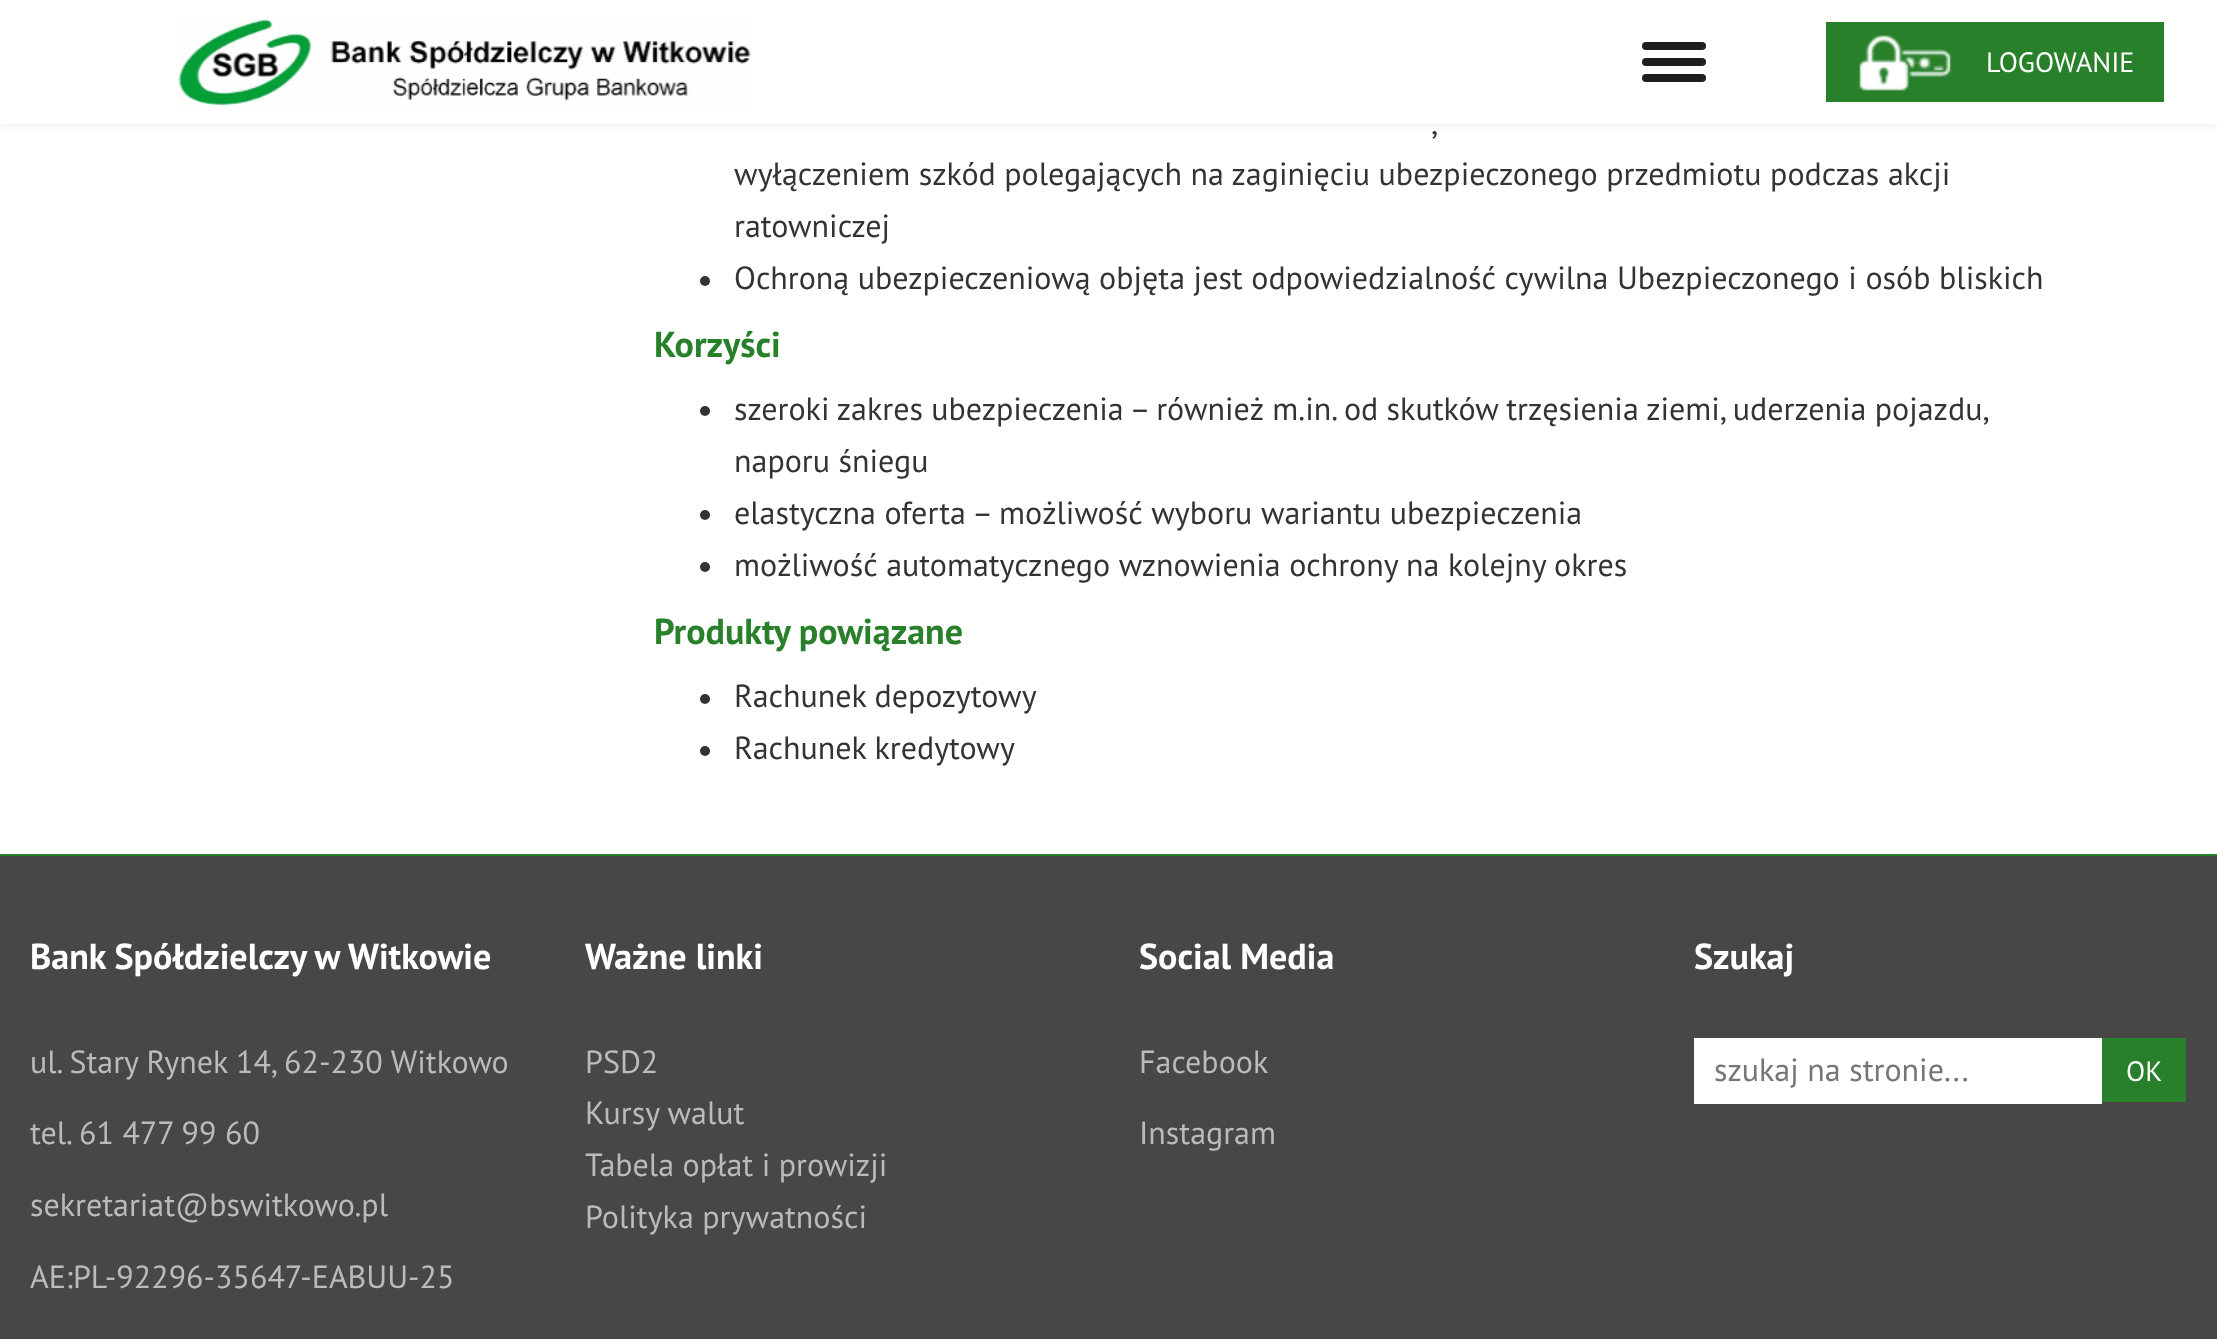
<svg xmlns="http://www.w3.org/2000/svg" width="2217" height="1339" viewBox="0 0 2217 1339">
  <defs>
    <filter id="blur1" x="-50%" y="-200%" width="200%" height="500%"><feGaussianBlur stdDeviation="5"/></filter>
  </defs>
  <rect width="100%" height="100%" fill="#ffffff"/>
  <rect x="0" y="0" width="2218" height="124" fill="#e8e8e8" filter="url(#blur1)"/>
  <rect x="0" y="0" width="2217" height="124" fill="#ffffff"/>
  <image x="178" y="19" width="574" height="88" href="img1.png"/>
  <rect x="1642" y="42" width="64" height="8" rx="4" fill="#1e1e1e"/>
  <rect x="1642" y="58" width="64" height="8" rx="4" fill="#1e1e1e"/>
  <rect x="1642" y="74" width="64" height="8" rx="4" fill="#1e1e1e"/>
  <rect x="1826" y="22" width="338" height="80" fill="#28802b"/>
  <image x="1859" y="35" width="92" height="56" href="img2.png"/>
  <text x="1986" y="72" font-family="PT Sans" font-size="28" fill="#ffffff">LOGOWANIE</text>
  <text x="1431" y="134" font-family="PT Sans" font-size="32" fill="#333333">,</text>
  <text x="734" y="185" font-family="PT Sans" font-size="32" fill="#333333">wyłączeniem szkód polegających na zaginięciu ubezpieczonego przedmiotu podczas akcji</text>
  <text x="734" y="237" font-family="PT Sans" font-size="32" fill="#333333">ratowniczej</text>
  <circle cx="705" cy="281" r="5" fill="#333333"/>
  <text x="734" y="289" font-family="PT Sans" font-size="32" fill="#333333">Ochroną ubezpieczeniową objęta jest odpowiedzialność cywilna Ubezpieczonego i osób bliskich</text>
  <text x="654" y="357" font-family="PT Sans" font-size="36" font-weight="bold" fill="#28802b">Korzyści</text>
  <circle cx="705" cy="411" r="5" fill="#333333"/>
  <text x="734" y="420" word-spacing="-0.25" font-family="PT Sans" font-size="32" fill="#333333">szeroki zakres ubezpieczenia – również m.in. od skutków trzęsienia ziemi, uderzenia pojazdu,</text>
  <text x="734" y="472" font-family="PT Sans" font-size="32" fill="#333333">naporu śniegu</text>
  <circle cx="705" cy="515" r="5" fill="#333333"/>
  <text x="734" y="524" font-family="PT Sans" font-size="32" fill="#333333">elastyczna oferta – możliwość wyboru wariantu ubezpieczenia</text>
  <circle cx="705" cy="567" r="5" fill="#333333"/>
  <text x="734" y="576" font-family="PT Sans" font-size="32" fill="#333333">możliwość automatycznego wznowienia ochrony na kolejny okres</text>
  <text x="654" y="644" font-family="PT Sans" font-size="36" font-weight="bold" fill="#28802b">Produkty powiązane</text>
  <circle cx="705" cy="699" r="5" fill="#333333"/>
  <text x="734" y="707" font-family="PT Sans" font-size="32" fill="#333333">Rachunek depozytowy</text>
  <circle cx="705" cy="751" r="5" fill="#333333"/>
  <text x="734" y="759" font-family="PT Sans" font-size="32" fill="#333333">Rachunek kredytowy</text>
  <rect x="0" y="856" width="2217" height="483" fill="#474747"/>
  <rect x="0" y="854" width="2217" height="2" fill="#28802b"/>
  <text x="30" y="969" font-family="PT Sans" font-size="36" font-weight="bold" fill="#ffffff">Bank Spółdzielczy w Witkowie</text>
  <text x="30" y="1073" font-family="PT Sans" font-size="32" fill="#bbbbbb">ul. Stary Rynek 14, 62-230 Witkowo</text>
  <text x="30" y="1144" font-family="PT Sans" font-size="32" fill="#bbbbbb">tel. 61 477 99 60</text>
  <text x="30" y="1216" font-family="PT Sans" font-size="32" fill="#bbbbbb">sekretariat@bswitkowo.pl</text>
  <text x="30" y="1288" font-family="PT Sans" font-size="32" fill="#bbbbbb">AE:PL-92296-35647-EABUU-25</text>
  <text x="585" y="969" font-family="PT Sans" font-size="36" font-weight="bold" fill="#ffffff">Ważne linki</text>
  <text x="585" y="1073" font-family="PT Sans" font-size="32" fill="#bbbbbb">PSD2</text>
  <text x="585" y="1124" font-family="PT Sans" font-size="32" fill="#bbbbbb">Kursy walut</text>
  <text x="585" y="1176" font-family="PT Sans" font-size="32" fill="#bbbbbb">Tabela opłat i prowizji</text>
  <text x="585" y="1228" font-family="PT Sans" font-size="32" fill="#bbbbbb">Polityka prywatności</text>
  <text x="1139" y="969" font-family="PT Sans" font-size="36" font-weight="bold" fill="#ffffff">Social Media</text>
  <text x="1139" y="1073" font-family="PT Sans" font-size="32" fill="#bbbbbb">Facebook</text>
  <text x="1139" y="1144" font-family="PT Sans" font-size="32" fill="#bbbbbb">Instagram</text>
  <text x="1694" y="969" font-family="PT Sans" font-size="36" font-weight="bold" fill="#ffffff">Szukaj</text>
  <rect x="1694" y="1038" width="408" height="66" fill="#ffffff"/>
  <text x="1714" y="1081" font-family="PT Sans" font-size="32" fill="#757575">szukaj na stronie...</text>
  <rect x="2102" y="1038" width="84" height="64" fill="#28802b"/>
  <text x="2126" y="1081" font-family="PT Sans" font-size="28" fill="#ffffff">OK</text>
</svg>
